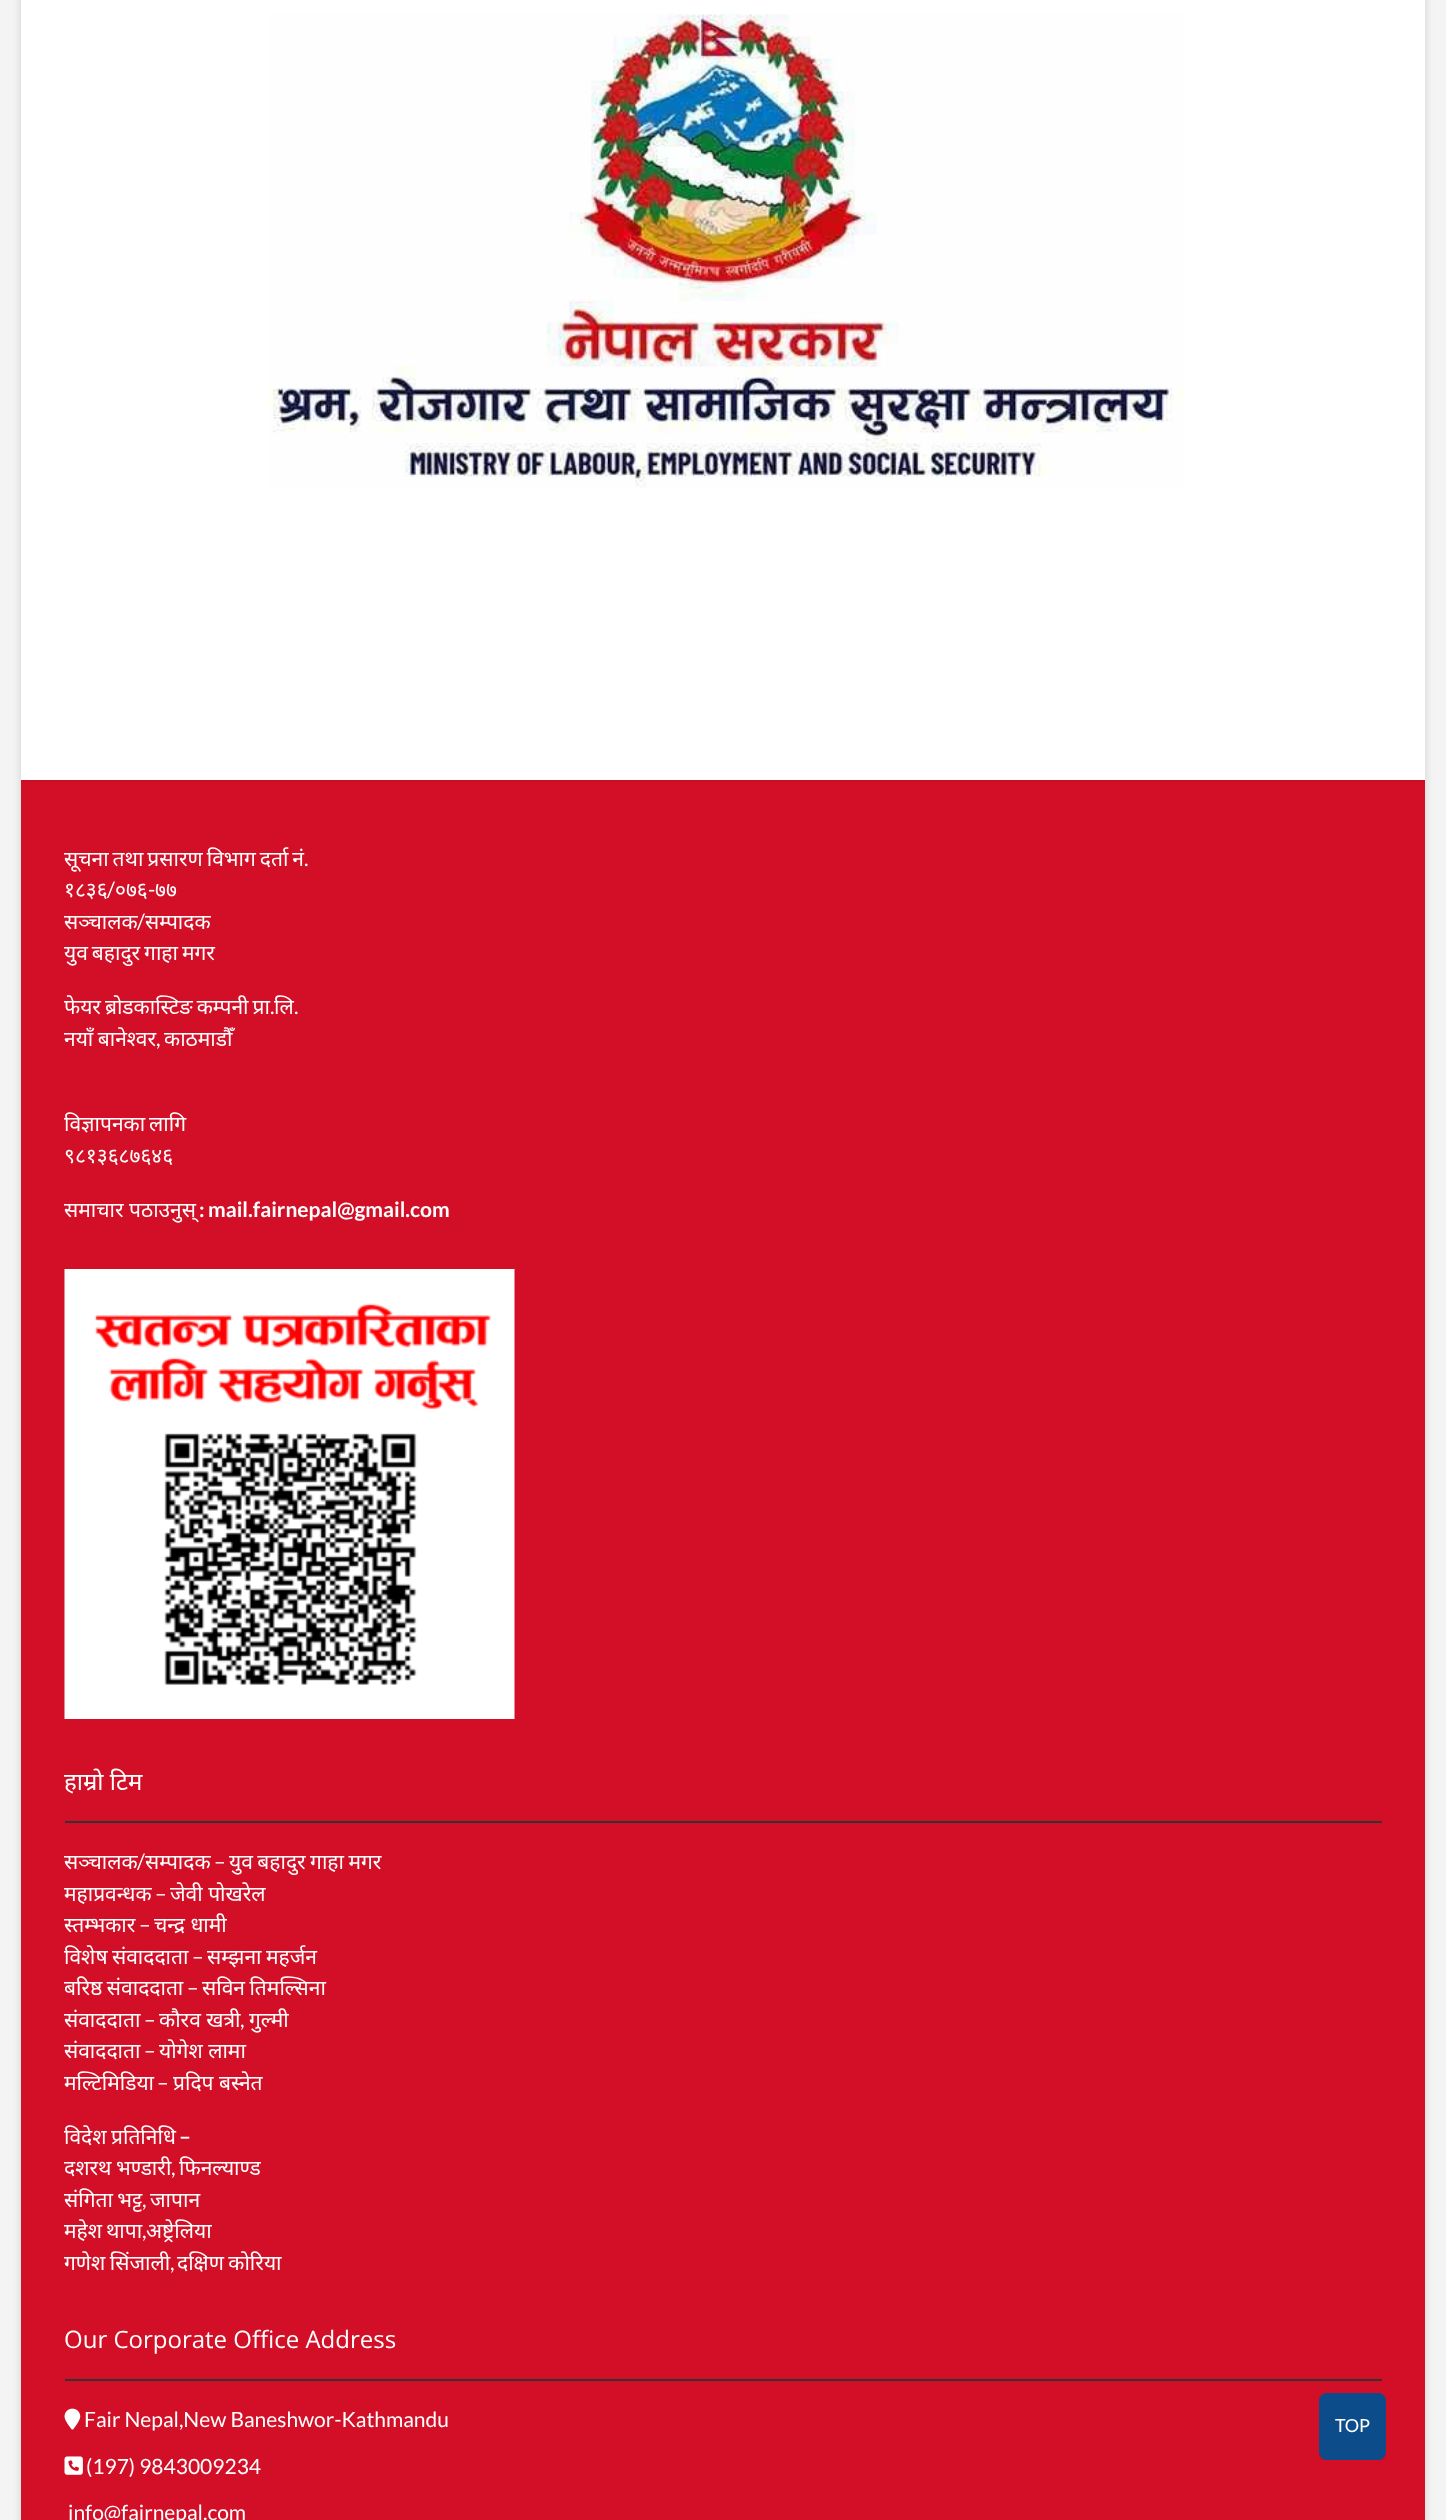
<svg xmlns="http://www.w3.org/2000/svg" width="1446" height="2520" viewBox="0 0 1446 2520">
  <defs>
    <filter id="blur1" x="-50%" y="-200%" width="200%" height="500%"><feGaussianBlur stdDeviation="4.5"/></filter>
    <clipPath id="clip1"><rect x="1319" y="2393" width="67" height="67"/></clipPath>
    <filter id="blur2" x="-50%" y="-200%" width="200%" height="500%"><feGaussianBlur stdDeviation="2"/></filter>
  </defs>
  <rect width="100%" height="100%" fill="#f4f4f4"/>
  <rect x="21" y="-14" width="1404" height="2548" fill="#000000" fill-opacity="0.15" filter="url(#blur1)"/>
  <rect x="21" y="0" width="1404" height="780" fill="#ffffff"/>
  <image x="267" y="13" width="918" height="475" href="img1.png"/>
  <rect x="21" y="782" width="1404" height="1738" fill="#d20f26"/>
  <rect x="21" y="780" width="1404" height="2" fill="#c80e24"/>
  <text x="64" y="866" word-spacing="-1.5" font-family="Noto Sans" font-size="21" fill="#ffffff">सूचना तथा प्रसारण विभाग दर्ता नं</text>
  <text x="304" y="866" font-family="Lato" font-size="21" fill="#ffffff">.</text>
  <text x="64" y="897" font-family="Noto Sans" font-size="21" fill="#ffffff">१८३६</text>
  <text x="107" y="897" font-family="Lato" font-size="21" fill="#ffffff">/</text>
  <text x="115" y="897" font-family="Noto Sans" font-size="21" fill="#ffffff">०७६</text>
  <text x="148" y="897" font-family="Lato" font-size="21" fill="#ffffff">-</text>
  <text x="155" y="897" font-family="Noto Sans" font-size="21" fill="#ffffff">७७</text>
  <text x="64" y="929" font-family="Noto Sans" font-size="21" fill="#ffffff">सञ्चालक</text>
  <text x="137" y="929" font-family="Lato" font-size="21" fill="#ffffff">/</text>
  <text x="145" y="929" font-family="Noto Sans" font-size="21" fill="#ffffff">सम्पादक</text>
  <text x="64" y="960" word-spacing="-1.5" font-family="Noto Sans" font-size="21" fill="#ffffff">युव बहादुर गाहा मगर</text>
  <text x="64" y="1014" word-spacing="-1.5" font-family="Noto Sans" font-size="21" fill="#ffffff">फेयर ब्रोडकास्टिङ कम्पनी प्रा</text>
  <text x="270" y="1014" font-family="Lato" font-size="21" fill="#ffffff">.</text>
  <text x="274" y="1014" font-family="Noto Sans" font-size="21" fill="#ffffff">लि</text>
  <text x="294" y="1014" font-family="Lato" font-size="21" fill="#ffffff">.</text>
  <text x="64" y="1046" word-spacing="-1" font-family="Noto Sans" font-size="21" fill="#ffffff">नयाँ बानेश्वर</text>
  <text x="156" y="1046" font-family="Lato" font-size="21" fill="#ffffff">,</text>
  <text x="164" y="1046" font-family="Noto Sans" font-size="21" fill="#ffffff">काठमाडौँ</text>
  <text x="64" y="1131" word-spacing="-1.5" font-family="Noto Sans" font-size="21" fill="#ffffff">विज्ञापनका लागि</text>
  <text x="64" y="1163" font-family="Noto Sans" font-size="21" fill="#ffffff">९८१३६८७६४६</text>
  <text x="64" y="1217" font-family="Noto Sans" font-size="21" fill="#ffffff">समाचार पठाउनुस्</text>
  <text x="199" y="1217" font-family="Lato" font-size="21" font-weight="bold" fill="#ffffff">:</text>
  <text x="208" y="1217" font-family="Lato" font-size="21" font-weight="bold" fill="#ffffff">mail.fairnepal@gmail.com</text>
  <image x="64" y="1269" width="451" height="450" href="img2.png"/>
  <rect x="65" y="1821" width="1317" height="2" fill="#333333"/>
  <text x="64" y="1790" font-family="Noto Sans" font-size="24" fill="#ffffff">हाम्रो टिम</text>
  <text x="64" y="1869" font-family="Noto Sans" font-size="21" fill="#ffffff">सञ्चालक</text>
  <text x="137" y="1869" font-family="Lato" font-size="21" fill="#ffffff">/</text>
  <text x="145" y="1869" font-family="Noto Sans" font-size="21" fill="#ffffff">सम्पादक</text>
  <text x="214" y="1869" font-family="Lato" font-size="21" fill="#ffffff">–</text>
  <text x="229" y="1869" word-spacing="-1" font-family="Noto Sans" font-size="21" fill="#ffffff">युव बहादुर गाहा मगर</text>
  <text x="64" y="1901" font-family="Noto Sans" font-size="21" fill="#ffffff">महाप्रवन्धक</text>
  <text x="155" y="1901" font-family="Lato" font-size="21" fill="#ffffff">–</text>
  <text x="170" y="1901" font-family="Noto Sans" font-size="21" fill="#ffffff">जेवी पाेखरेल</text>
  <text x="64" y="1932" font-family="Noto Sans" font-size="21" fill="#ffffff">स्तम्भकार</text>
  <text x="139" y="1932" font-family="Lato" font-size="21" fill="#ffffff">–</text>
  <text x="154" y="1932" font-family="Noto Sans" font-size="21" fill="#ffffff">चन्द्र धामी</text>
  <text x="64" y="1964" word-spacing="-1" font-family="Noto Sans" font-size="21" fill="#ffffff">विशेष संवाददाता</text>
  <text x="192" y="1964" font-family="Lato" font-size="21" fill="#ffffff">–</text>
  <text x="207" y="1964" word-spacing="-1" font-family="Noto Sans" font-size="21" fill="#ffffff">सम्झना महर्जन</text>
  <text x="64" y="1995" word-spacing="-1" font-family="Noto Sans" font-size="21" fill="#ffffff">बरिष्ठ संवाददाता</text>
  <text x="187" y="1995" font-family="Lato" font-size="21" fill="#ffffff">–</text>
  <text x="202" y="1995" word-spacing="-1" font-family="Noto Sans" font-size="21" fill="#ffffff">सविन तिमल्सिना</text>
  <text x="64" y="2027" font-family="Noto Sans" font-size="21" fill="#ffffff">संवाददाता</text>
  <text x="144" y="2027" font-family="Lato" font-size="21" fill="#ffffff">–</text>
  <text x="159" y="2027" font-family="Noto Sans" font-size="21" fill="#ffffff">काैरव खत्री</text>
  <text x="240" y="2027" font-family="Lato" font-size="21" fill="#ffffff">,</text>
  <text x="249" y="2027" font-family="Noto Sans" font-size="21" fill="#ffffff">गुल्मी</text>
  <text x="64" y="2058" font-family="Noto Sans" font-size="21" fill="#ffffff">संवाददाता</text>
  <text x="144" y="2058" font-family="Lato" font-size="21" fill="#ffffff">–</text>
  <text x="159" y="2058" font-family="Noto Sans" font-size="21" fill="#ffffff">याेगेश लामा</text>
  <text x="64" y="2090" font-family="Noto Sans" font-size="21" fill="#ffffff">मल्टिमिडिया</text>
  <text x="157" y="2090" font-family="Lato" font-size="21" fill="#ffffff">–</text>
  <text x="173" y="2090" font-family="Noto Sans" font-size="21" fill="#ffffff">प्रदिप बस्नेत</text>
  <text x="64" y="2144" word-spacing="-1" font-family="Noto Sans" font-size="21" fill="#ffffff">विदेश प्रतिनिधि</text>
  <text x="179" y="2144" font-family="Lato" font-size="21" font-weight="bold" fill="#ffffff">–</text>
  <text x="64" y="2175" word-spacing="-1" font-family="Noto Sans" font-size="21" fill="#ffffff">दशरथ भण्डारी</text>
  <text x="171" y="2175" font-family="Lato" font-size="21" fill="#ffffff">,</text>
  <text x="179" y="2175" font-family="Noto Sans" font-size="21" fill="#ffffff">फिनल्याण्ड</text>
  <text x="64" y="2207" word-spacing="-1" font-family="Noto Sans" font-size="21" fill="#ffffff">संगिता भट्ट</text>
  <text x="142" y="2207" font-family="Lato" font-size="21" fill="#ffffff">,</text>
  <text x="150" y="2207" font-family="Noto Sans" font-size="21" fill="#ffffff">जापान</text>
  <text x="64" y="2238" word-spacing="-1.5" font-family="Noto Sans" font-size="21" fill="#ffffff">महेश थापा</text>
  <text x="142" y="2238" font-family="Lato" font-size="21" fill="#ffffff">,</text>
  <text x="146" y="2238" font-family="Noto Sans" font-size="21" fill="#ffffff">अष्ट्रेलिया</text>
  <text x="64" y="2270" word-spacing="-1" font-family="Noto Sans" font-size="21" fill="#ffffff">गणेश सिंजाली</text>
  <text x="170" y="2270" font-family="Lato" font-size="21" fill="#ffffff">,</text>
  <text x="177" y="2270" word-spacing="-1" font-family="Noto Sans" font-size="21" fill="#ffffff">दक्षिण काेरिया</text>
  <rect x="65" y="2379" width="1317" height="2" fill="#333333"/>
  <text x="64" y="2348" font-family="Open Sans" font-size="24" fill="#ffffff">Our Corporate Office Address</text>
  <image x="64" y="2408" width="17" height="22" href="img3.png"/>
  <text x="84" y="2427" font-family="Lato" font-size="21" fill="#ffffff">Fair Nepal,New Baneshwor-Kathmandu</text>
  <image x="64" y="2456" width="19" height="19" href="img4.png"/>
  <text x="86" y="2474" font-family="Lato" font-size="21" fill="#ffffff">(197) 9843009234</text>
  <text x="68" y="2520" font-family="Lato" font-size="21" fill="#ffffff">info@fairnepal.com</text>
  <g clip-path="url(#clip1)">
    <rect x="1319" y="2396" width="67" height="67" rx="8" fill="#000000" fill-opacity="0.08" filter="url(#blur2)"/>
  </g>
  <rect x="1319" y="2393" width="67" height="67" rx="8" fill="#0c4c8a"/>
  <text x="1335" y="2432" font-family="Lato" font-size="18" fill="#ffffff">TOP</text>
</svg>
